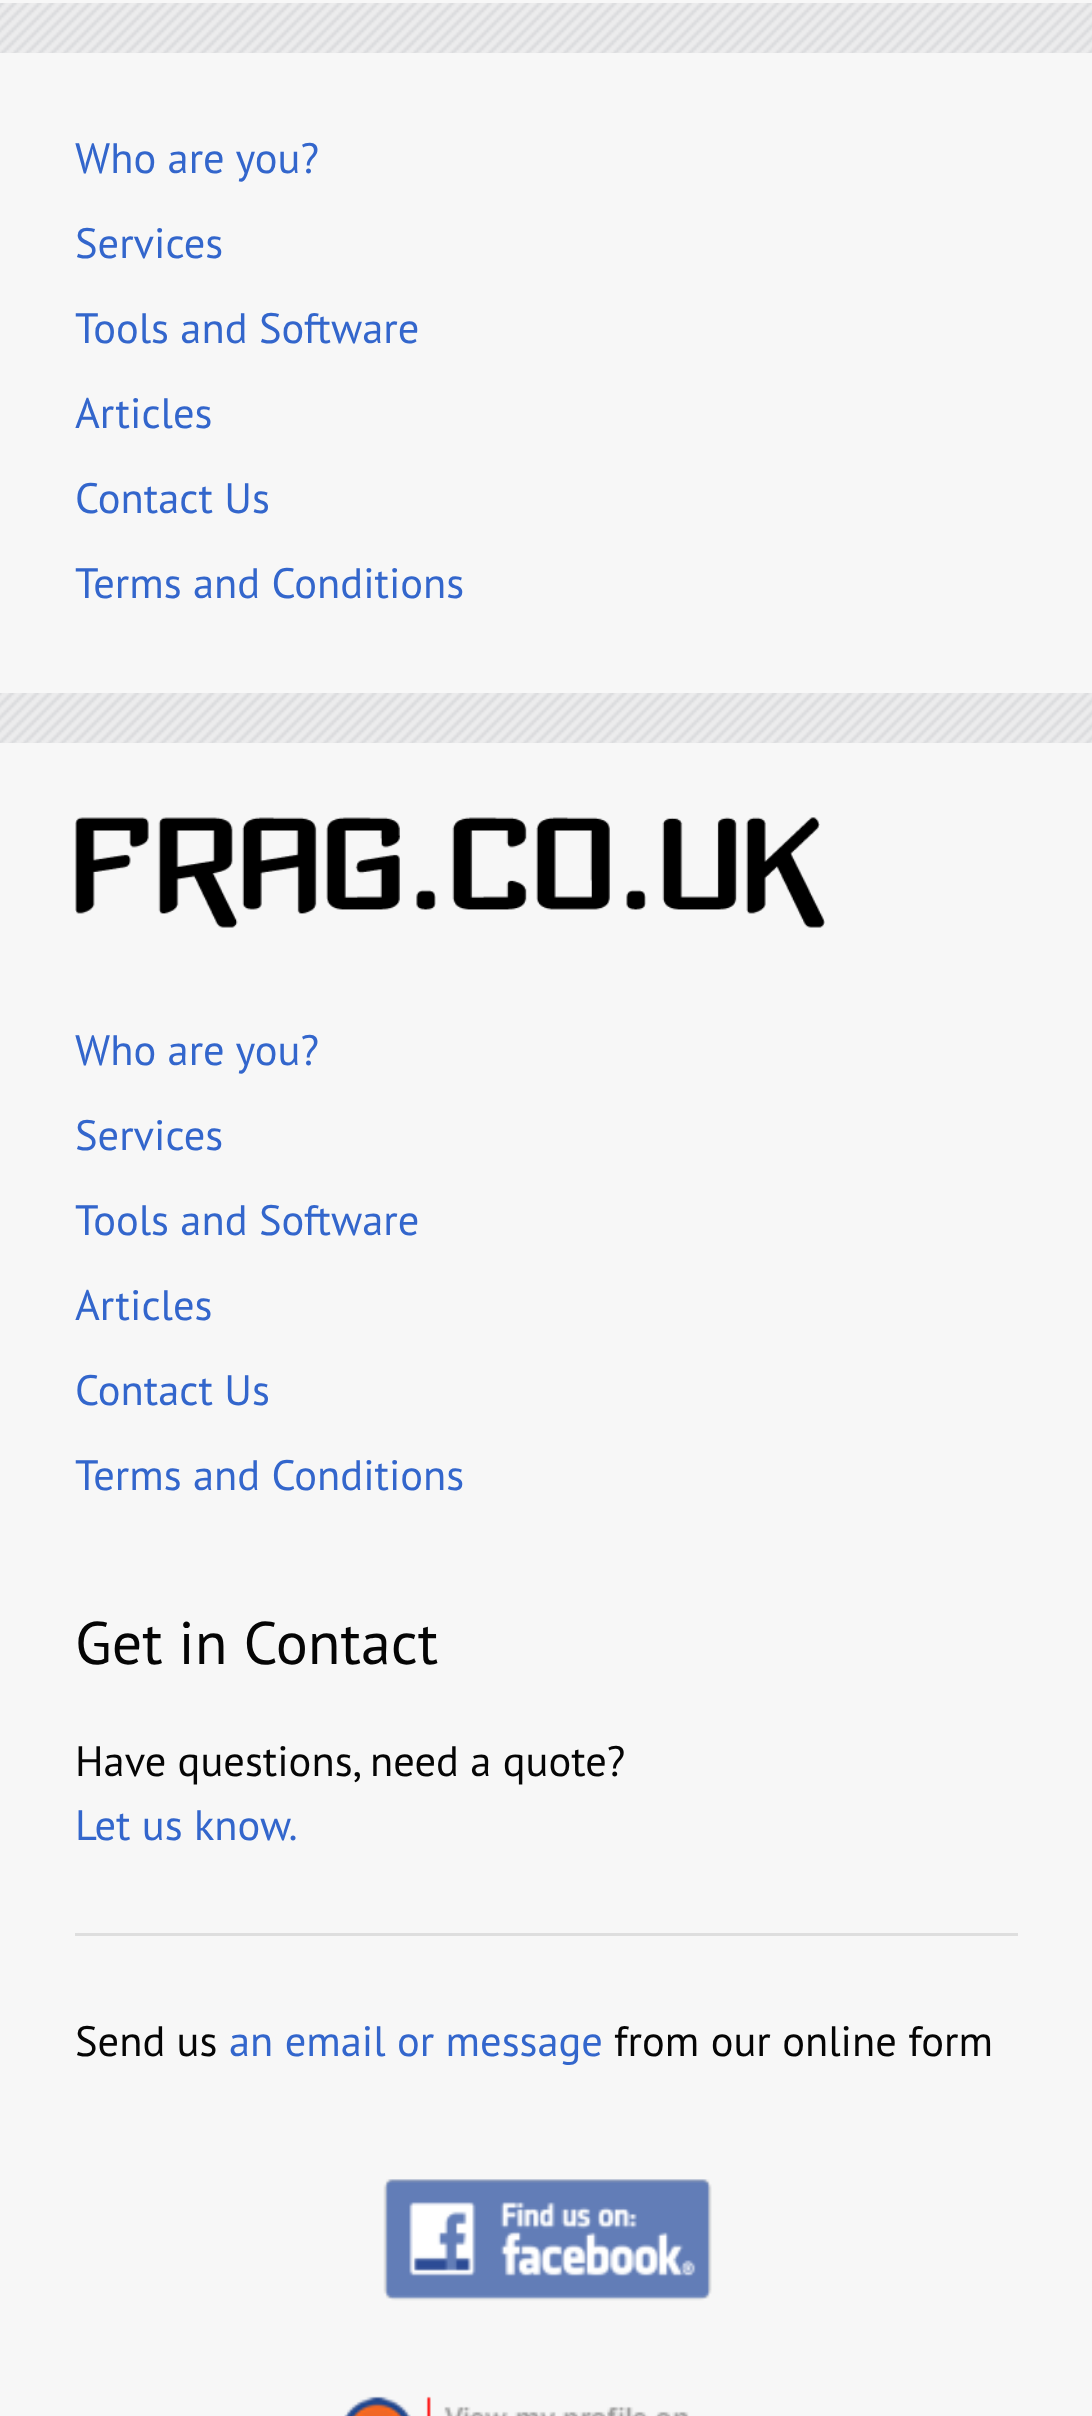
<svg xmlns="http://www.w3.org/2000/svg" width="1092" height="2416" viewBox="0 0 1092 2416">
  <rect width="100%" height="100%" fill="#ececed"/>
  <image x="0" y="3" width="1092" height="740" href="img1.png"/>
  <rect x="0" y="0" width="1092" height="3" fill="#f7f7f7"/>
  <rect x="0" y="53" width="1092" height="640" fill="#f7f7f7"/>
  <text x="75" y="173" font-family="PT Sans" font-size="42.5" fill="#3366cc">Who are you?</text>
  <text x="75" y="258" font-family="PT Sans" font-size="42.5" fill="#3366cc">Services</text>
  <text x="75" y="343" font-family="PT Sans" font-size="42.5" fill="#3366cc">Tools and Software</text>
  <text x="75" y="428" font-family="PT Sans" font-size="42.5" fill="#3366cc">Articles</text>
  <text x="75" y="513" font-family="PT Sans" font-size="42.5" fill="#3366cc">Contact Us</text>
  <text x="75" y="598" font-family="PT Sans" font-size="42.5" fill="#3366cc">Terms and Conditions</text>
  <rect x="0" y="743" width="1092" height="1673" fill="#f7f7f7"/>
  <image x="75" y="817" width="750" height="111" href="img2.png"/>
  <text x="75" y="1065" font-family="PT Sans" font-size="42.5" fill="#3366cc">Who are you?</text>
  <text x="75" y="1150" font-family="PT Sans" font-size="42.5" fill="#3366cc">Services</text>
  <text x="75" y="1235" font-family="PT Sans" font-size="42.5" fill="#3366cc">Tools and Software</text>
  <text x="75" y="1320" font-family="PT Sans" font-size="42.5" fill="#3366cc">Articles</text>
  <text x="75" y="1405" font-family="PT Sans" font-size="42.5" fill="#3366cc">Contact Us</text>
  <text x="75" y="1490" font-family="PT Sans" font-size="42.5" fill="#3366cc">Terms and Conditions</text>
  <text x="75" y="1664" font-family="PT Sans" font-size="60" fill="#050505">Get in Contact</text>
  <text x="75" y="1776" font-family="PT Sans" font-size="42.5" fill="#050505">Have questions, need a quote?</text>
  <text x="75" y="1840" font-family="PT Sans" font-size="42.5" fill="#3366cc">Let us know.</text>
  <rect x="75" y="1933" width="943" height="3" fill="#dedede"/>
  <text x="75" y="2056" font-family="PT Sans" font-size="42.5" fill="#050505">Send us</text>
  <text x="229" y="2056" font-family="PT Sans" font-size="42.5" fill="#3366cc">an email or message</text>
  <text x="614" y="2056" font-family="PT Sans" font-size="42.5" fill="#050505">from our online form</text>
  <image x="383" y="2179" width="329" height="122" href="img3.png"/>
  <image x="344" y="2396" width="345" height="20" href="img4.png"/>
</svg>
